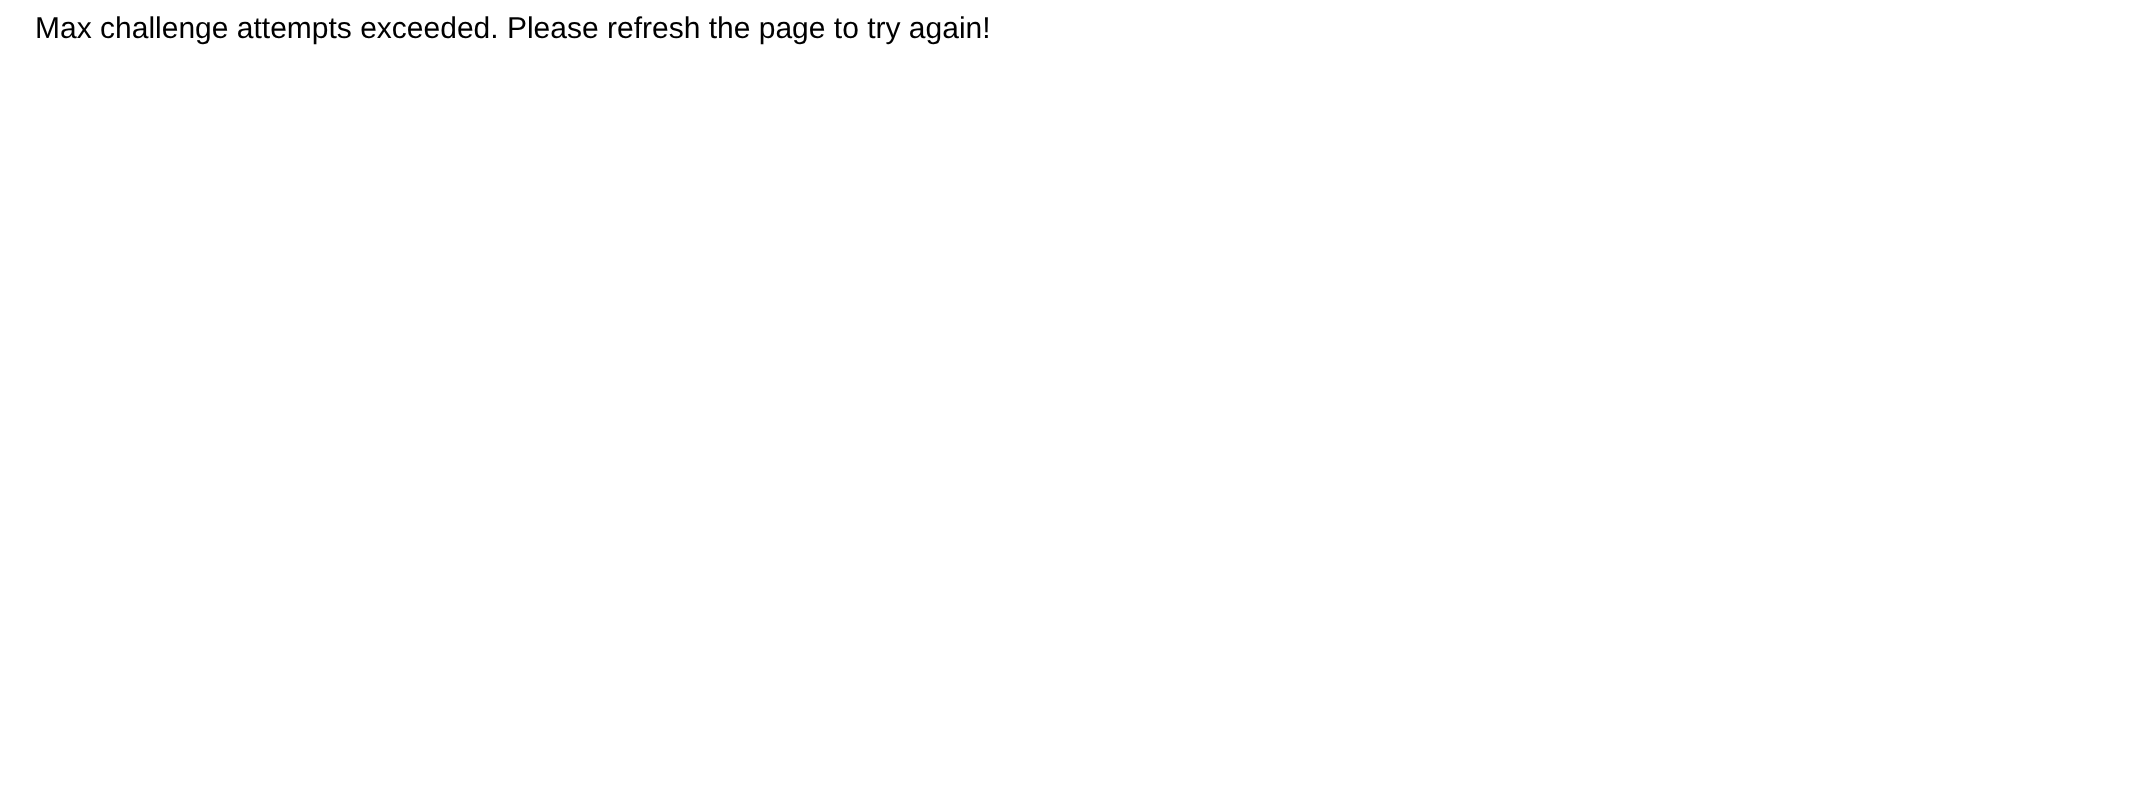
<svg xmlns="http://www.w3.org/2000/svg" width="2130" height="788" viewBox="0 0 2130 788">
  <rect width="100%" height="100%" fill="#ffffff"/>
  <text x="35" y="38" font-family="Liberation Sans" font-size="30" fill="#000000">Max challenge attempts exceeded. Please refresh the page to try again!</text>
</svg>
